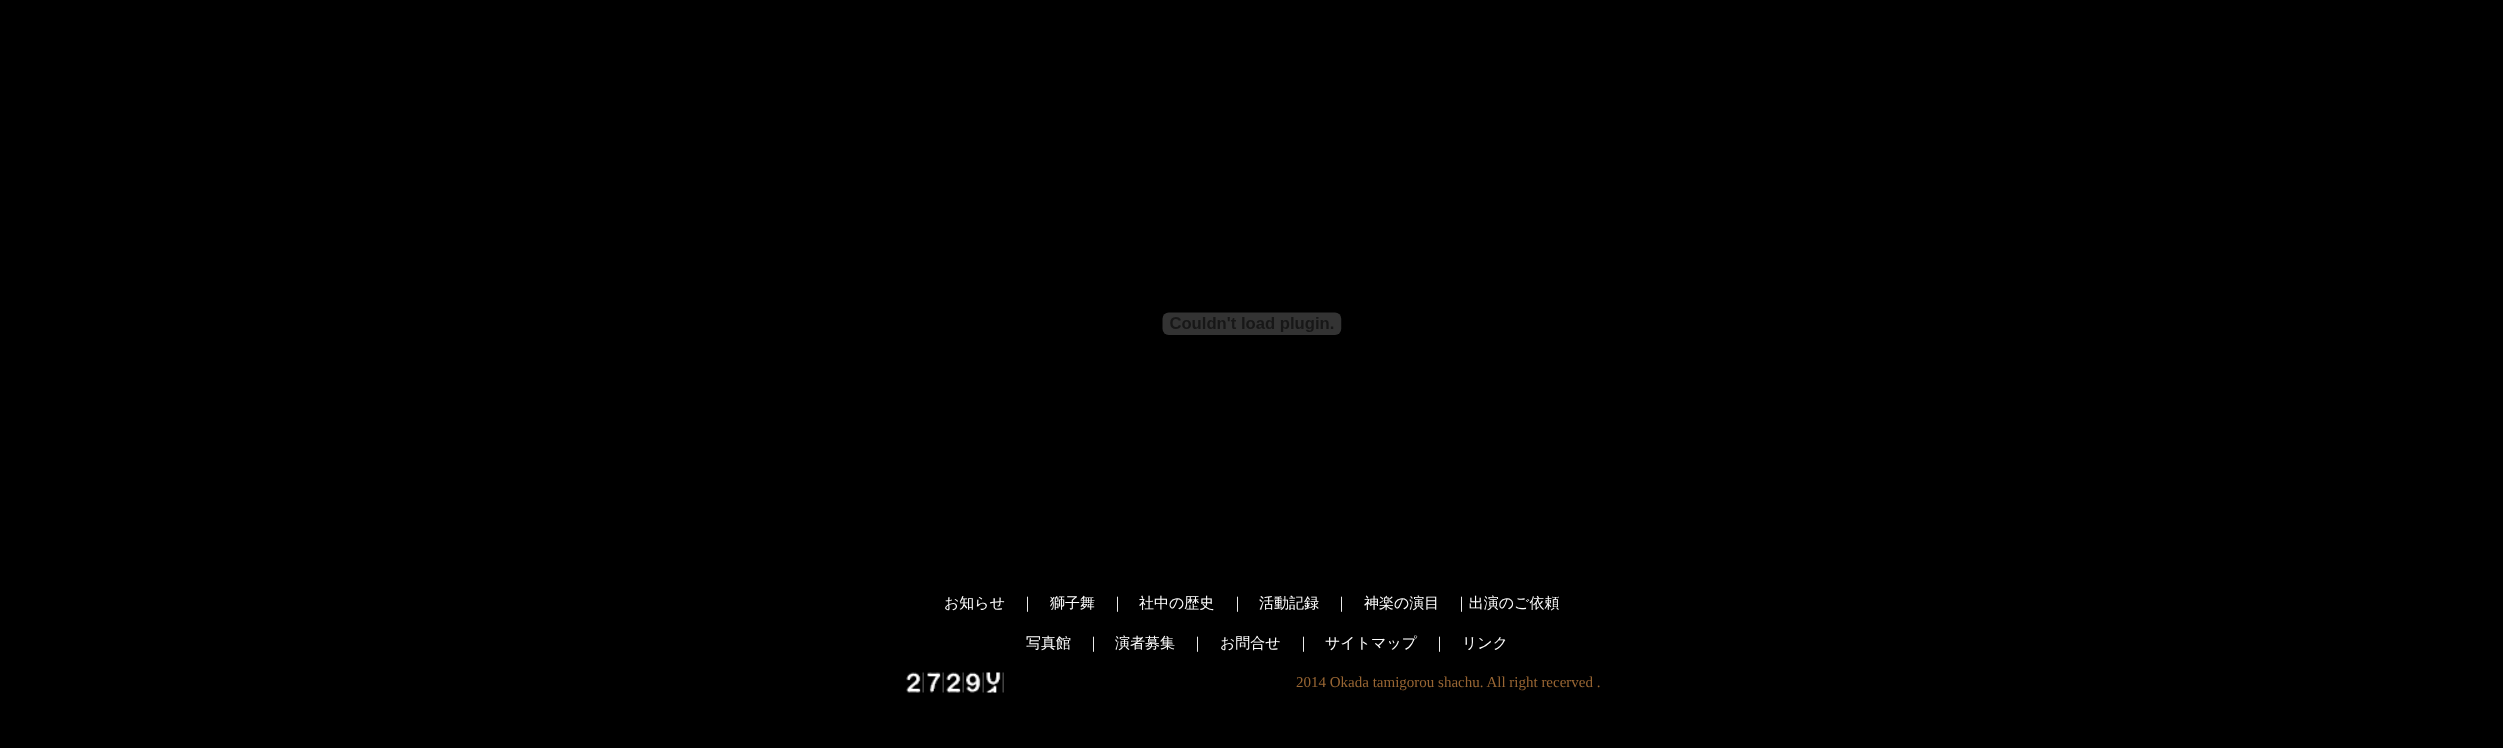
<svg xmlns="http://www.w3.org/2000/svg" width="2503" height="748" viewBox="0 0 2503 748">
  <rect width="100%" height="100%" fill="#000000"/>
  <image x="1162" y="312" width="180" height="23" href="img1.png"/>
  <text x="944" y="608" font-family="WenQuanYi Zen Hei" font-size="15" font-weight="500" fill="#ffffff">お知らせ</text>
  <text x="1020" y="608" font-family="WenQuanYi Zen Hei" font-size="15" font-weight="500" fill="#ffffff">｜</text>
  <text x="1050" y="608" font-family="WenQuanYi Zen Hei" font-size="15" font-weight="500" fill="#ffffff">獅子舞</text>
  <text x="1110" y="608" font-family="WenQuanYi Zen Hei" font-size="15" font-weight="500" fill="#ffffff">｜</text>
  <text x="1139" y="608" font-family="WenQuanYi Zen Hei" font-size="15" font-weight="500" fill="#ffffff">社中の歴史</text>
  <text x="1230" y="608" font-family="WenQuanYi Zen Hei" font-size="15" font-weight="500" fill="#ffffff">｜</text>
  <text x="1259" y="608" font-family="WenQuanYi Zen Hei" font-size="15" font-weight="500" fill="#ffffff">活動記録</text>
  <text x="1334" y="608" font-family="WenQuanYi Zen Hei" font-size="15" font-weight="500" fill="#ffffff">｜</text>
  <text x="1364" y="608" font-family="WenQuanYi Zen Hei" font-size="15" font-weight="500" fill="#ffffff">神楽の演目</text>
  <text x="1454" y="608" font-family="WenQuanYi Zen Hei" font-size="15" font-weight="500" fill="#ffffff">｜出演のご依頼</text>
  <text x="1026" y="648" font-family="WenQuanYi Zen Hei" font-size="15" font-weight="500" fill="#ffffff">写真館</text>
  <text x="1086" y="648" font-family="WenQuanYi Zen Hei" font-size="15" font-weight="500" fill="#ffffff">｜</text>
  <text x="1115" y="648" font-family="WenQuanYi Zen Hei" font-size="15" font-weight="500" fill="#ffffff">演者募集</text>
  <text x="1190" y="648" font-family="WenQuanYi Zen Hei" font-size="15" font-weight="500" fill="#ffffff">｜</text>
  <text x="1220" y="648" font-family="WenQuanYi Zen Hei" font-size="15" font-weight="500" fill="#ffffff">お問合せ</text>
  <text x="1296" y="648" font-family="WenQuanYi Zen Hei" font-size="15" font-weight="500" fill="#ffffff">｜</text>
  <text x="1325" y="648" font-family="WenQuanYi Zen Hei" font-size="15" font-weight="500" fill="#ffffff">サイトマップ</text>
  <text x="1432" y="648" font-family="WenQuanYi Zen Hei" font-size="15" font-weight="500" fill="#ffffff">｜</text>
  <text x="1462" y="648" font-family="WenQuanYi Zen Hei" font-size="15" font-weight="500" fill="#ffffff">リンク</text>
  <image x="906" y="672" width="98" height="21" href="img2.png"/>
  <text x="1296" y="687" font-family="Liberation Serif" font-size="15" fill="#996633">2014 Okada tamigorou shachu. All right recerved .</text>
</svg>
